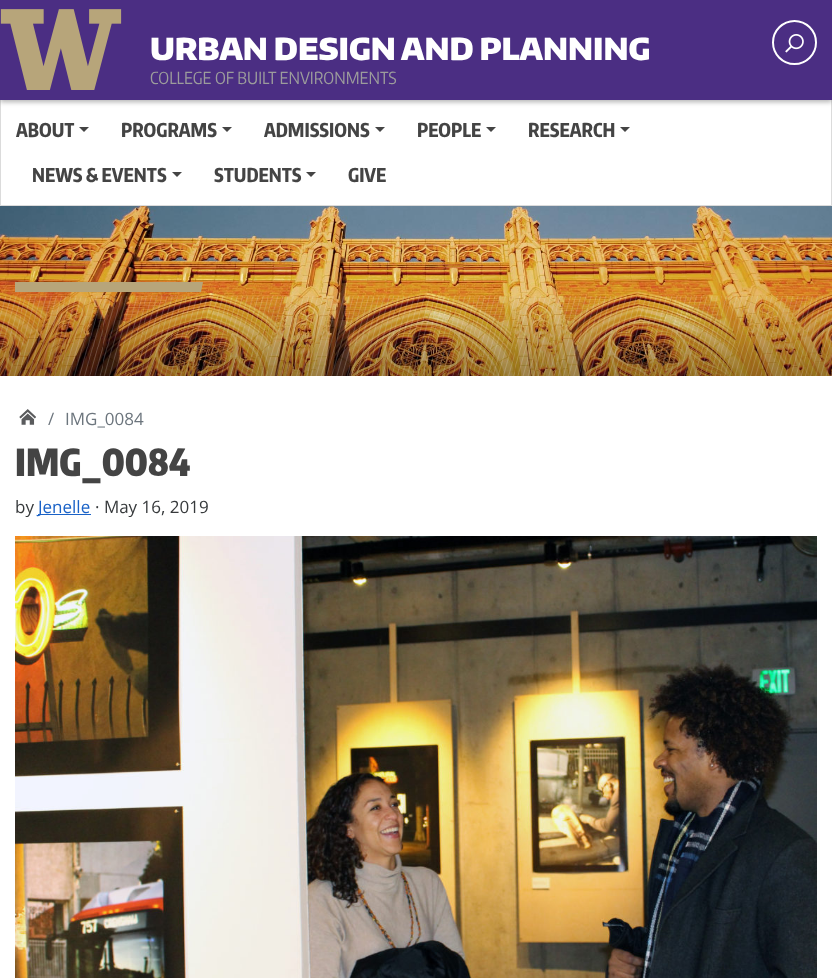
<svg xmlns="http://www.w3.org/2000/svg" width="832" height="978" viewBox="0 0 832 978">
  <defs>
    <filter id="blur1" x="-50%" y="-200%" width="200%" height="500%"><feGaussianBlur stdDeviation="2.5"/></filter>
    <clipPath id="clip1"><rect x="15" y="282" width="802" height="10"/></clipPath>
  </defs>
  <rect width="100%" height="100%" fill="#ffffff"/>
  <path d="M832 100V206L831 205V100Z" fill="#dbdbdb"/>
  <path d="M832 206H0L1 205H831Z" fill="#000000" fill-opacity="0.14"/>
  <path d="M0 206V100H1V205Z" fill="#000000" fill-opacity="0.14"/>
  <rect x="0" y="2" width="832" height="100" fill="#000000" fill-opacity="0.3" filter="url(#blur1)"/>
  <rect x="0" y="0" width="832" height="100" fill="#4b2e83"/>
  <image x="0" y="9" width="122" height="81" href="img1.png"/>
  <text x="150" y="60" font-family="Encode Sans" font-size="30" font-weight="900" fill="#ffffff">URBAN DESIGN AND PLANNING</text>
  <text x="150" y="84" font-family="Encode Sans Condensed" font-size="16.5" fill="#9c9c9c">COLLEGE OF BUILT ENVIRONMENTS</text>
  <circle cx="794.5" cy="42.5" r="21.5" fill="none" stroke="#ffffff" stroke-width="2"/>
  <image x="785" y="34" width="19" height="19" href="img2.png"/>
  <text x="16" y="137" font-family="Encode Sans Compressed" font-size="19" font-weight="800" fill="#444444">ABOUT</text>
  <path d="M79 127H89L84 132Z" fill="#444444"/>
  <text x="121" y="137" font-family="Encode Sans Compressed" font-size="19" font-weight="800" fill="#444444">PROGRAMS</text>
  <path d="M222 127H232L227 132Z" fill="#444444"/>
  <text x="264" y="137" font-family="Encode Sans Compressed" font-size="19" font-weight="800" fill="#444444">ADMISSIONS</text>
  <path d="M375 127H385L380 132Z" fill="#444444"/>
  <text x="417" y="137" font-family="Encode Sans Compressed" font-size="19" font-weight="800" fill="#444444">PEOPLE</text>
  <path d="M486 127H496L491 132Z" fill="#444444"/>
  <text x="528" y="137" font-family="Encode Sans Compressed" font-size="19" font-weight="800" fill="#444444">RESEARCH</text>
  <path d="M620 127H630L625 132Z" fill="#444444"/>
  <text x="32" y="182" font-family="Encode Sans Compressed" font-size="19" font-weight="800" fill="#444444">NEWS &amp; EVENTS</text>
  <path d="M172 172H182L177 177Z" fill="#444444"/>
  <text x="214" y="182" font-family="Encode Sans Compressed" font-size="19" font-weight="800" fill="#444444">STUDENTS</text>
  <path d="M306 172H316L311 177Z" fill="#444444"/>
  <text x="348" y="182" font-family="Encode Sans Compressed" font-size="19" font-weight="800" fill="#444444">GIVE</text>
  <image x="0" y="206" width="832" height="170" href="img3.png"/>
  <g clip-path="url(#clip1)">
    <path d="M11 282H203L201 292H9Z" fill="#b7a57a"/>
  </g>
  <image x="0" y="296" width="832" height="80" href="img4.png"/>
  <image x="19" y="409" width="17" height="16" href="img5.png"/>
  <text x="48" y="425" font-family="Open Sans" font-size="17" fill="#6c757d">/</text>
  <text x="65" y="425" font-family="Open Sans" font-size="17" fill="#6c757d">IMG_0084</text>
  <text x="15" y="476" font-family="Encode Sans Compressed" font-size="37" font-weight="900" fill="#444444">IMG_0084</text>
  <text x="15" y="513" font-family="Open Sans" font-size="17" fill="#373a3c">by</text>
  <rect x="38" y="514" width="53" height="1" fill="#1a62c7"/>
  <text x="38" y="513" font-family="Open Sans" font-size="17" fill="#1a62c7">Jenelle</text>
  <text x="95" y="513" font-family="Open Sans" font-size="17" fill="#373a3c">· May 16, 2019</text>
  <image x="15" y="536" width="802" height="442" href="img6.png"/>
</svg>
